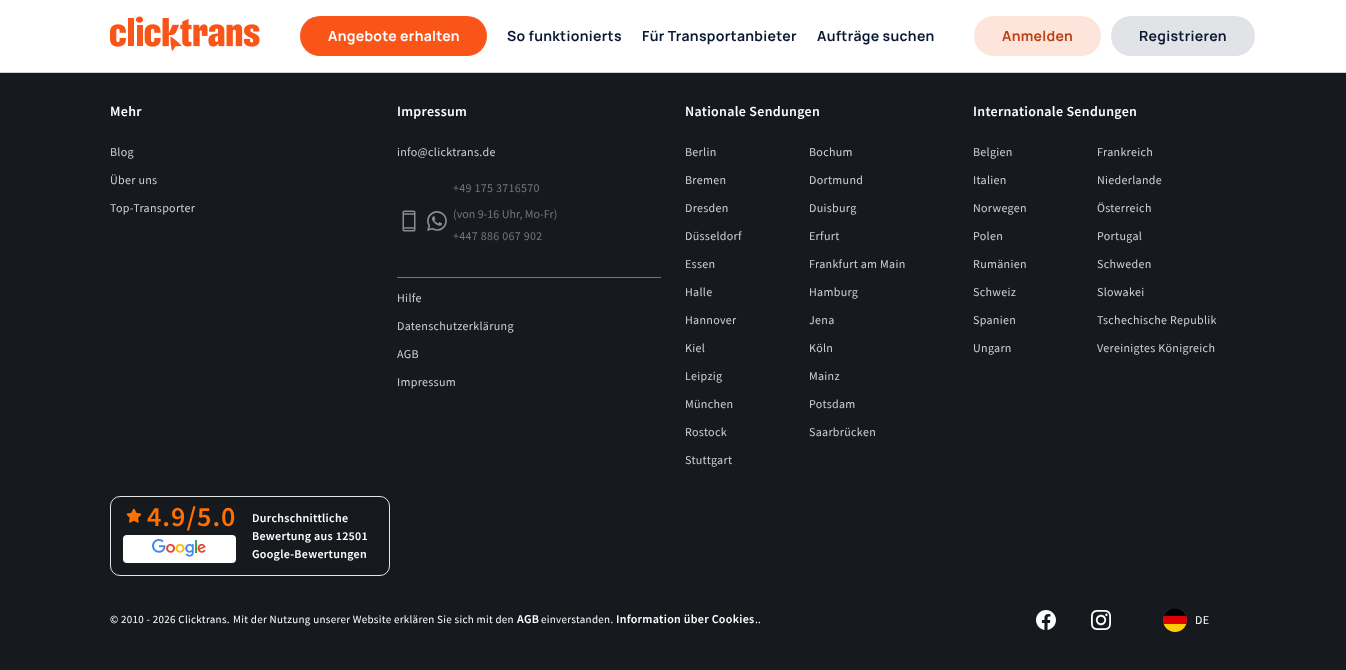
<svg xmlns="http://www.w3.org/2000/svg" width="1346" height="670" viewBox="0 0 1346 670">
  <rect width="100%" height="100%" fill="#16191e"/>
  <rect x="0" y="0" width="1346" height="72" fill="#ffffff"/>
  <rect x="0" y="72" width="1346" height="1" fill="#ced1d6"/>
  <image x="110" y="16" width="150" height="36" href="img1.png"/>
  <rect x="300" y="16" width="187" height="40" rx="20" fill="#fa5519"/>
  <text x="328" y="41" font-family="Manrope" font-size="14" font-weight="bold" letter-spacing="0.3" fill="#ffffff">Angebote erhalten</text>
  <text x="507" y="41" font-family="Manrope" font-size="14" font-weight="bold" letter-spacing="0.3" fill="#0a1833">So funktionierts</text>
  <text x="642" y="41" font-family="Manrope" font-size="14" font-weight="bold" letter-spacing="0.3" fill="#0a1833">Für Transportanbieter</text>
  <text x="817" y="41" font-family="Manrope" font-size="14" font-weight="bold" letter-spacing="0.3" fill="#0a1833">Aufträge suchen</text>
  <rect x="974" y="16" width="127" height="40" rx="20" fill="#fee5db"/>
  <text x="1002" y="41" font-family="Manrope" font-size="14" font-weight="bold" letter-spacing="0.3" fill="#bc4013">Anmelden</text>
  <rect x="1111" y="16" width="144" height="40" rx="20" fill="#e2e3e6"/>
  <text x="1139" y="41" font-family="Manrope" font-size="14" font-weight="bold" letter-spacing="0.3" fill="#0a1833">Registrieren</text>
  <text x="110" y="116" font-family="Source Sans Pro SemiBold" font-size="14" font-weight="600" letter-spacing="0.3" fill="#ffffff">Mehr</text>
  <text x="110" y="156" font-family="Source Sans Pro" font-size="12" letter-spacing="0.3" fill="#ced1d6">Blog</text>
  <text x="110" y="184" font-family="Source Sans Pro" font-size="12" letter-spacing="0.3" fill="#ced1d6">Über uns</text>
  <text x="110" y="212" font-family="Source Sans Pro" font-size="12" letter-spacing="0.3" fill="#ced1d6">Top-Transporter</text>
  <text x="397" y="116" font-family="Source Sans Pro SemiBold" font-size="14" font-weight="600" letter-spacing="0.3" fill="#ffffff">Impressum</text>
  <text x="397" y="156" font-family="Source Sans Pro" font-size="12" letter-spacing="0.3" fill="#ced1d6">info@clicktrans.de</text>
  <image x="402" y="210" width="14" height="22" href="img2.png"/>
  <image x="427" y="211" width="20" height="20" href="img3.png"/>
  <text x="453" y="192" font-family="Source Sans Pro" font-size="12" letter-spacing="0.3" fill="#72757a">+49 175 3716570</text>
  <text x="453" y="218" font-family="Source Sans Pro" font-size="12" fill="#72757a">(von 9-16 Uhr, Mo-Fr)</text>
  <text x="453" y="240" font-family="Source Sans Pro" font-size="12" letter-spacing="0.3" fill="#72757a">+447 886 067 902</text>
  <rect x="397" y="277" width="264" height="1" fill="#72757a"/>
  <text x="397" y="302" font-family="Source Sans Pro" font-size="12" letter-spacing="0.3" fill="#ced1d6">Hilfe</text>
  <text x="397" y="330" font-family="Source Sans Pro" font-size="12" letter-spacing="0.3" fill="#ced1d6">Datenschutzerklärung</text>
  <text x="397" y="358" font-family="Source Sans Pro" font-size="12" letter-spacing="0.3" fill="#ced1d6">AGB</text>
  <text x="397" y="386" font-family="Source Sans Pro" font-size="12" letter-spacing="0.3" fill="#ced1d6">Impressum</text>
  <text x="685" y="116" font-family="Source Sans Pro SemiBold" font-size="14" font-weight="600" letter-spacing="0.3" fill="#ffffff">Nationale Sendungen</text>
  <text x="685" y="156" font-family="Source Sans Pro" font-size="12" letter-spacing="0.3" fill="#ced1d6">Berlin</text>
  <text x="809" y="156" font-family="Source Sans Pro" font-size="12" letter-spacing="0.3" fill="#ced1d6">Bochum</text>
  <text x="685" y="184" font-family="Source Sans Pro" font-size="12" letter-spacing="0.3" fill="#ced1d6">Bremen</text>
  <text x="809" y="184" font-family="Source Sans Pro" font-size="12" letter-spacing="0.3" fill="#ced1d6">Dortmund</text>
  <text x="685" y="212" font-family="Source Sans Pro" font-size="12" letter-spacing="0.3" fill="#ced1d6">Dresden</text>
  <text x="809" y="212" font-family="Source Sans Pro" font-size="12" letter-spacing="0.3" fill="#ced1d6">Duisburg</text>
  <text x="685" y="240" font-family="Source Sans Pro" font-size="12" letter-spacing="0.3" fill="#ced1d6">Düsseldorf</text>
  <text x="809" y="240" font-family="Source Sans Pro" font-size="12" letter-spacing="0.3" fill="#ced1d6">Erfurt</text>
  <text x="685" y="268" font-family="Source Sans Pro" font-size="12" letter-spacing="0.3" fill="#ced1d6">Essen</text>
  <text x="809" y="268" font-family="Source Sans Pro" font-size="12" letter-spacing="0.3" fill="#ced1d6">Frankfurt am Main</text>
  <text x="685" y="296" font-family="Source Sans Pro" font-size="12" letter-spacing="0.3" fill="#ced1d6">Halle</text>
  <text x="809" y="296" font-family="Source Sans Pro" font-size="12" letter-spacing="0.3" fill="#ced1d6">Hamburg</text>
  <text x="685" y="324" font-family="Source Sans Pro" font-size="12" letter-spacing="0.3" fill="#ced1d6">Hannover</text>
  <text x="809" y="324" font-family="Source Sans Pro" font-size="12" letter-spacing="0.3" fill="#ced1d6">Jena</text>
  <text x="685" y="352" font-family="Source Sans Pro" font-size="12" letter-spacing="0.3" fill="#ced1d6">Kiel</text>
  <text x="809" y="352" font-family="Source Sans Pro" font-size="12" letter-spacing="0.3" fill="#ced1d6">Köln</text>
  <text x="685" y="380" font-family="Source Sans Pro" font-size="12" letter-spacing="0.3" fill="#ced1d6">Leipzig</text>
  <text x="809" y="380" font-family="Source Sans Pro" font-size="12" letter-spacing="0.3" fill="#ced1d6">Mainz</text>
  <text x="685" y="408" font-family="Source Sans Pro" font-size="12" letter-spacing="0.3" fill="#ced1d6">München</text>
  <text x="809" y="408" font-family="Source Sans Pro" font-size="12" letter-spacing="0.3" fill="#ced1d6">Potsdam</text>
  <text x="685" y="436" font-family="Source Sans Pro" font-size="12" letter-spacing="0.3" fill="#ced1d6">Rostock</text>
  <text x="809" y="436" font-family="Source Sans Pro" font-size="12" letter-spacing="0.3" fill="#ced1d6">Saarbrücken</text>
  <text x="685" y="464" font-family="Source Sans Pro" font-size="12" letter-spacing="0.3" fill="#ced1d6">Stuttgart</text>
  <text x="973" y="116" font-family="Source Sans Pro SemiBold" font-size="14" font-weight="600" letter-spacing="0.3" fill="#ffffff">Internationale Sendungen</text>
  <text x="973" y="156" font-family="Source Sans Pro" font-size="12" letter-spacing="0.3" fill="#ced1d6">Belgien</text>
  <text x="1097" y="156" font-family="Source Sans Pro" font-size="12" letter-spacing="0.3" fill="#ced1d6">Frankreich</text>
  <text x="973" y="184" font-family="Source Sans Pro" font-size="12" letter-spacing="0.3" fill="#ced1d6">Italien</text>
  <text x="1097" y="184" font-family="Source Sans Pro" font-size="12" letter-spacing="0.3" fill="#ced1d6">Niederlande</text>
  <text x="973" y="212" font-family="Source Sans Pro" font-size="12" letter-spacing="0.3" fill="#ced1d6">Norwegen</text>
  <text x="1097" y="212" font-family="Source Sans Pro" font-size="12" letter-spacing="0.3" fill="#ced1d6">Österreich</text>
  <text x="973" y="240" font-family="Source Sans Pro" font-size="12" letter-spacing="0.3" fill="#ced1d6">Polen</text>
  <text x="1097" y="240" font-family="Source Sans Pro" font-size="12" letter-spacing="0.3" fill="#ced1d6">Portugal</text>
  <text x="973" y="268" font-family="Source Sans Pro" font-size="12" letter-spacing="0.3" fill="#ced1d6">Rumänien</text>
  <text x="1097" y="268" font-family="Source Sans Pro" font-size="12" letter-spacing="0.3" fill="#ced1d6">Schweden</text>
  <text x="973" y="296" font-family="Source Sans Pro" font-size="12" letter-spacing="0.3" fill="#ced1d6">Schweiz</text>
  <text x="1097" y="296" font-family="Source Sans Pro" font-size="12" letter-spacing="0.3" fill="#ced1d6">Slowakei</text>
  <text x="973" y="324" font-family="Source Sans Pro" font-size="12" letter-spacing="0.3" fill="#ced1d6">Spanien</text>
  <text x="1097" y="324" font-family="Source Sans Pro" font-size="12" letter-spacing="0.3" fill="#ced1d6">Tschechische Republik</text>
  <text x="973" y="352" font-family="Source Sans Pro" font-size="12" letter-spacing="0.3" fill="#ced1d6">Ungarn</text>
  <text x="1097" y="352" font-family="Source Sans Pro" font-size="12" letter-spacing="0.3" fill="#ced1d6">Vereinigtes Königreich</text>
  <rect x="110.5" y="496.5" width="279" height="79" rx="9.5" fill="none" stroke="#e6e6e6"/>
  <image x="126" y="508" width="16" height="15" href="img4.png"/>
  <text x="147" y="526" font-family="Source Sans Pro SemiBold" font-size="28" font-weight="600" letter-spacing="1" fill="#ff7000">4.9/5.0</text>
  <rect x="123" y="535" width="113" height="28" rx="4" fill="#ffffff"/>
  <image x="152" y="539" width="54" height="18" href="img5.png"/>
  <text x="252" y="522" font-family="Source Sans Pro SemiBold" font-size="12" font-weight="600" letter-spacing="0.3" fill="#ffffff">Durchschnittliche</text>
  <text x="252" y="540" font-family="Source Sans Pro SemiBold" font-size="12" font-weight="600" letter-spacing="0.3" fill="#ffffff">Bewertung aus 12501</text>
  <text x="252" y="558" font-family="Source Sans Pro SemiBold" font-size="12" font-weight="600" letter-spacing="0.3" fill="#ffffff">Google-Bewertungen</text>
  <text x="110" y="623" font-family="Source Sans Pro" font-size="11" letter-spacing="0.3" fill="#ffffff">© 2010 - 2026 Clicktrans.</text>
  <text x="233" y="623" font-family="Source Sans Pro" font-size="11" letter-spacing="0.3" fill="#ffffff">Mit der Nutzung unserer Website erklären Sie sich mit den</text>
  <text x="517" y="623" font-family="Source Sans Pro SemiBold" font-size="12" font-weight="600" letter-spacing="0.3" fill="#ffffff">AGB</text>
  <text x="541" y="623" font-family="Source Sans Pro" font-size="11" letter-spacing="0.3" fill="#ffffff">einverstanden.</text>
  <text x="616" y="623" font-family="Source Sans Pro SemiBold" font-size="12" font-weight="600" letter-spacing="0.3" fill="#ffffff">Information über Cookies</text>
  <text x="755" y="623" font-family="Source Sans Pro" font-size="12" letter-spacing="0.3" fill="#ffffff">.</text>
  <text x="758" y="623" font-family="Source Sans Pro" font-size="11" letter-spacing="0.3" fill="#ffffff">.</text>
  <image x="1036" y="610" width="20" height="20" href="img6.png"/>
  <image x="1091" y="610" width="20" height="20" href="img7.png"/>
  <image x="1163" y="608" width="24" height="24" href="img8.png"/>
  <text x="1195" y="624" font-family="Source Sans Pro" font-size="12" letter-spacing="0.3" fill="#ffffff">DE</text>
</svg>
